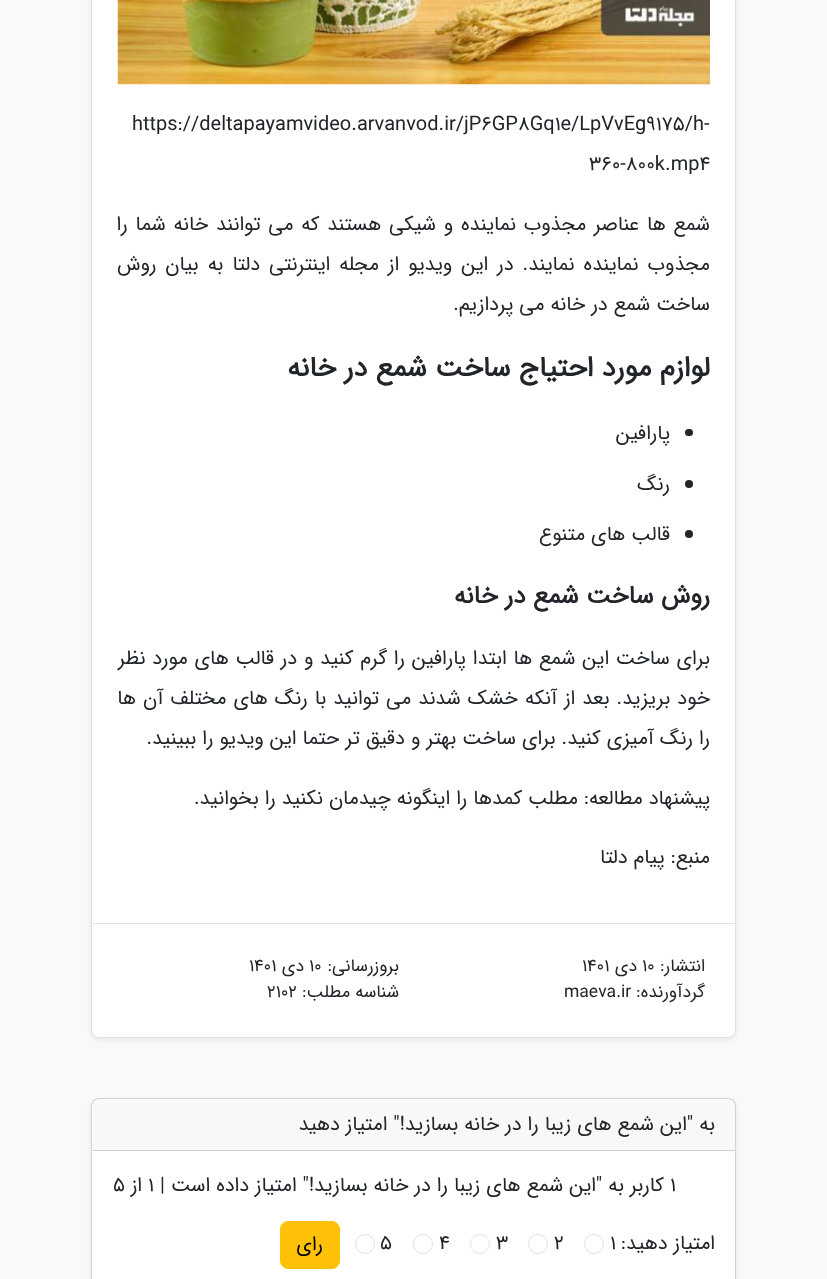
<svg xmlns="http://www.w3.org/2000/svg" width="827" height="1279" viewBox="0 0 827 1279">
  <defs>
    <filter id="blur1" x="-50%" y="-200%" width="200%" height="500%"><feGaussianBlur stdDeviation="2.5"/></filter>
  </defs>
  <rect width="100%" height="100%" fill="#f8f9fa"/>
  <rect x="91" y="-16" width="645" height="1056" rx="8" fill="#000000" fill-opacity="0.07" filter="url(#blur1)"/>
  <rect x="91.5" y="-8.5" width="644" height="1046" rx="7.5" fill="#ffffff" stroke="#dee2e6"/>
  <image x="117" y="0" width="593" height="85" href="img1.png"/>
  <text x="132" y="130" font-family="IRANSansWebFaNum" font-size="20" fill="#212529">https://deltapayamvideo.arvanvod.ir/jP6GP8Gq1e/LpVvEg9175/h-</text>
  <text x="589" y="170" font-family="IRANSansWebFaNum" font-size="20" fill="#212529">360-800k.mp4</text>
  <text x="710" y="230" word-spacing="1.75" font-family="IRANSansWebFaNum" font-size="20" direction="rtl" fill="#212529">شمع ها عناصر مجذوب نماینده و شیکی هستند که می توانند خانه شما را</text>
  <text x="710" y="270" word-spacing="3" font-family="IRANSansWebFaNum" font-size="20" direction="rtl" fill="#212529">مجذوب نماینده نمایند. در این ویدیو از مجله اینترنتی دلتا به بیان روش</text>
  <text x="710" y="310" font-family="IRANSansWebFaNum" font-size="20" direction="rtl" fill="#212529">ساخت شمع در خانه می پردازیم.</text>
  <text x="710" y="376" font-family="IRANSansWebFaNum" font-size="28" font-weight="bold" direction="rtl" fill="#212529">لوازم مورد احتیاج ساخت شمع در خانه</text>
  <rect x="685" y="429" width="8" height="7" rx="3.5" fill="#212529"/>
  <text x="670" y="439" font-family="IRANSansWebFaNum" font-size="20" direction="rtl" fill="#212529">پارافین</text>
  <circle cx="689" cy="484" r="4" fill="#212529"/>
  <text x="670" y="490" font-family="IRANSansWebFaNum" font-size="20" direction="rtl" fill="#212529">رنگ</text>
  <circle cx="689" cy="534" r="4" fill="#212529"/>
  <text x="670" y="540" font-family="IRANSansWebFaNum" font-size="20" direction="rtl" fill="#212529">قالب های متنوع</text>
  <text x="710" y="603" font-family="IRANSansWebFaNum" font-size="25" font-weight="bold" direction="rtl" fill="#212529">روش ساخت شمع در خانه</text>
  <text x="710" y="664" word-spacing="0.75" font-family="IRANSansWebFaNum" font-size="20" direction="rtl" fill="#212529">برای ساخت این شمع ها ابتدا پارافین را گرم کنید و در قالب های مورد نظر</text>
  <text x="710" y="704" word-spacing="1" font-family="IRANSansWebFaNum" font-size="20" direction="rtl" fill="#212529">خود بریزید. بعد از آنکه خشک شدند می توانید با رنگ های مختلف آن ها</text>
  <text x="710" y="744" font-family="IRANSansWebFaNum" font-size="20" direction="rtl" fill="#212529">را رنگ آمیزی کنید. برای ساخت بهتر و دقیق تر حتما این ویدیو را ببینید.</text>
  <text x="710" y="804" font-family="IRANSansWebFaNum" font-size="20" direction="rtl" fill="#212529">پیشنهاد مطالعه: مطلب کمدها را اینگونه چیدمان نکنید را بخوانید.</text>
  <text x="710" y="863" font-family="IRANSansWebFaNum" font-size="20" direction="rtl" fill="#212529">منبع: پیام دلتا</text>
  <rect x="93" y="923" width="642" height="1" fill="#dee2e6"/>
  <text x="705" y="971" font-family="IRANSansWebFaNum" font-size="17.5" direction="rtl" fill="#212529">انتشار:</text>
  <text x="642" y="971" font-family="IRANSansWebFaNum" font-size="17.5" fill="#212529">10</text>
  <text x="637" y="971" font-family="IRANSansWebFaNum" font-size="17.5" direction="rtl" fill="#212529">دی</text>
  <text x="582" y="971" font-family="IRANSansWebFaNum" font-size="17.5" fill="#212529">1401</text>
  <text x="399" y="971" font-family="IRANSansWebFaNum" font-size="17.5" direction="rtl" fill="#212529">بروزرسانی:</text>
  <text x="309" y="971" font-family="IRANSansWebFaNum" font-size="17.5" fill="#212529">10</text>
  <text x="304" y="971" font-family="IRANSansWebFaNum" font-size="17.5" direction="rtl" fill="#212529">دی</text>
  <text x="249" y="971" font-family="IRANSansWebFaNum" font-size="17.5" fill="#212529">1401</text>
  <text x="705" y="997" font-family="IRANSansWebFaNum" font-size="17.5" direction="rtl" fill="#212529">گردآورنده:</text>
  <text x="564" y="997" font-family="IRANSansWebFaNum" font-size="17.5" fill="#212529">maeva.ir</text>
  <text x="399" y="997" font-family="IRANSansWebFaNum" font-size="17.5" direction="rtl" fill="#212529">شناسه مطلب:</text>
  <text x="267" y="997" font-family="IRANSansWebFaNum" font-size="17.5" fill="#212529">2102</text>
  <rect x="91" y="1100" width="645" height="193" rx="8" fill="#000000" fill-opacity="0.07" filter="url(#blur1)"/>
  <rect x="91" y="1098" width="645" height="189" rx="8" fill="#ffffff"/>
  <rect x="91.5" y="1098.5" width="644" height="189" rx="7.5" fill="none" stroke="#000000" stroke-opacity="0.18"/>
  <rect x="93" y="1099" width="642" height="51" fill="#212529" fill-opacity="0.03"/>
  <rect x="93" y="1150" width="642" height="1" fill="#cdcdcd"/>
  <text x="715" y="1130" font-family="IRANSansWebFaNum" font-size="20" direction="rtl" fill="#212529">به "این شمع های زیبا را در خانه بسازید!" امتیاز دهید</text>
  <text x="670" y="1191" font-family="IRANSansWebFaNum" font-size="20" fill="#212529">1</text>
  <text x="664" y="1191" font-family="IRANSansWebFaNum" font-size="20" direction="rtl" fill="#212529">کاربر</text>
  <text x="624" y="1191" font-family="IRANSansWebFaNum" font-size="20" direction="rtl" fill="#212529">به "</text>
  <text x="596" y="1191" font-family="IRANSansWebFaNum" font-size="20" direction="rtl" fill="#212529">این شمع های زیبا را در خانه بسازید!</text>
  <text x="309" y="1191" font-family="IRANSansWebFaNum" font-size="20" direction="rtl" fill="#212529">" امتیاز داده است |</text>
  <text x="148" y="1191" font-family="IRANSansWebFaNum" font-size="20" fill="#212529">1</text>
  <text x="142" y="1191" font-family="IRANSansWebFaNum" font-size="20" direction="rtl" fill="#212529">از</text>
  <text x="113" y="1191" font-family="IRANSansWebFaNum" font-size="20" fill="#212529">5</text>
  <text x="715" y="1249" font-family="IRANSansWebFaNum" font-size="20" direction="rtl" fill="#212529">امتیاز دهید:</text>
  <text x="610" y="1249" font-family="IRANSansWebFaNum" font-size="20" fill="#212529">1</text>
  <circle cx="594" cy="1244" r="9.5" fill="none" stroke="#dee2e6"/>
  <text x="554" y="1249" font-family="IRANSansWebFaNum" font-size="20" fill="#212529">2</text>
  <circle cx="538" cy="1244" r="9.5" fill="none" stroke="#dee2e6"/>
  <text x="496" y="1249" font-family="IRANSansWebFaNum" font-size="20" fill="#212529">3</text>
  <circle cx="480" cy="1244" r="9.5" fill="none" stroke="#dee2e6"/>
  <text x="439" y="1249" font-family="IRANSansWebFaNum" font-size="20" fill="#212529">4</text>
  <circle cx="423" cy="1244" r="9.5" fill="none" stroke="#dee2e6"/>
  <text x="380" y="1249" font-family="IRANSansWebFaNum" font-size="20" fill="#212529">5</text>
  <circle cx="365" cy="1244" r="9.5" fill="none" stroke="#dee2e6"/>
  <rect x="280.5" y="1221.5" width="59" height="47" rx="7.5" fill="#ffc107" stroke="#ffc107"/>
  <text x="323" y="1250" font-family="IRANSansWebFaNum" font-size="20" direction="rtl" fill="#000000">رای</text>
</svg>
